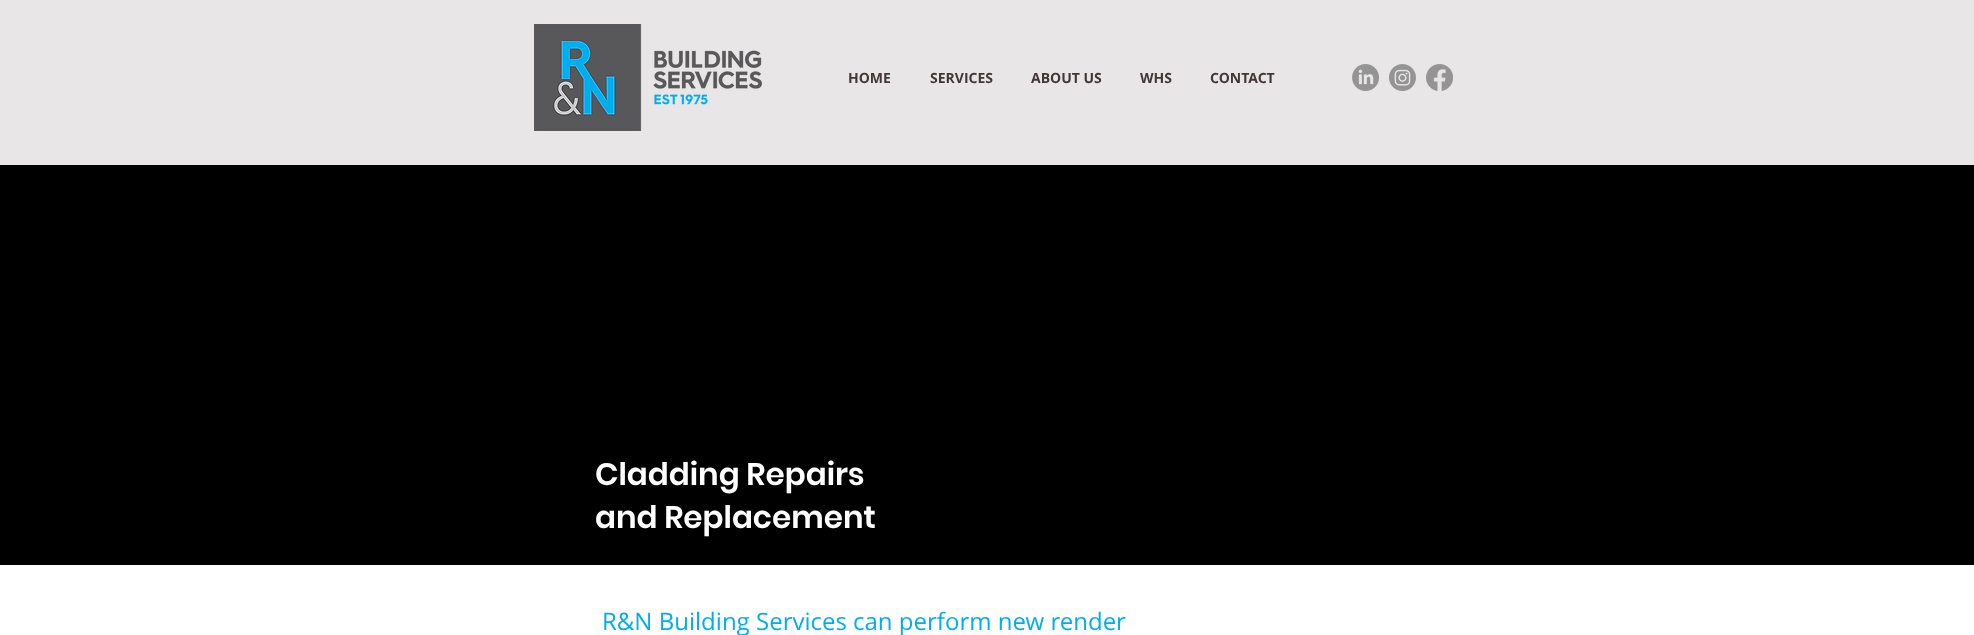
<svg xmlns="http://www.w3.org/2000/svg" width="1974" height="635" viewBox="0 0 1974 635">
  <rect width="100%" height="100%" fill="#ffffff"/>
  <rect x="0" y="0" width="1974" height="165" fill="#e8e6e6"/>
  <image x="534" y="24" width="228" height="107" href="img1.png"/>
  <text x="848" y="83" font-family="Open Sans" font-size="14" font-weight="bold" fill="#423737">HOME</text>
  <text x="930" y="83" font-family="Open Sans" font-size="14" font-weight="bold" fill="#423737">SERVICES</text>
  <text x="1031" y="83" font-family="Open Sans" font-size="14" font-weight="bold" fill="#423737">ABOUT US</text>
  <text x="1140" y="83" font-family="Open Sans" font-size="14" font-weight="bold" fill="#423737">WHS</text>
  <text x="1210" y="83" font-family="Open Sans" font-size="14" font-weight="bold" fill="#423737">CONTACT</text>
  <image x="1352" y="64" width="27" height="27" href="img2.png"/>
  <image x="1389" y="64" width="27" height="27" href="img3.png"/>
  <image x="1426" y="64" width="27" height="27" href="img4.png"/>
  <rect x="0" y="165" width="1974" height="400" fill="#000000"/>
  <text x="595" y="485" font-family="Poppins" font-size="31" font-weight="600" fill="#ffffff">Cladding Repairs</text>
  <text x="595" y="528" font-family="Poppins" font-size="31" font-weight="600" fill="#ffffff">and Replacement</text>
  <text x="602" y="630" font-family="Open Sans" font-size="24" fill="#00aeef">R&amp;N Building Services can perform new render</text>
</svg>
